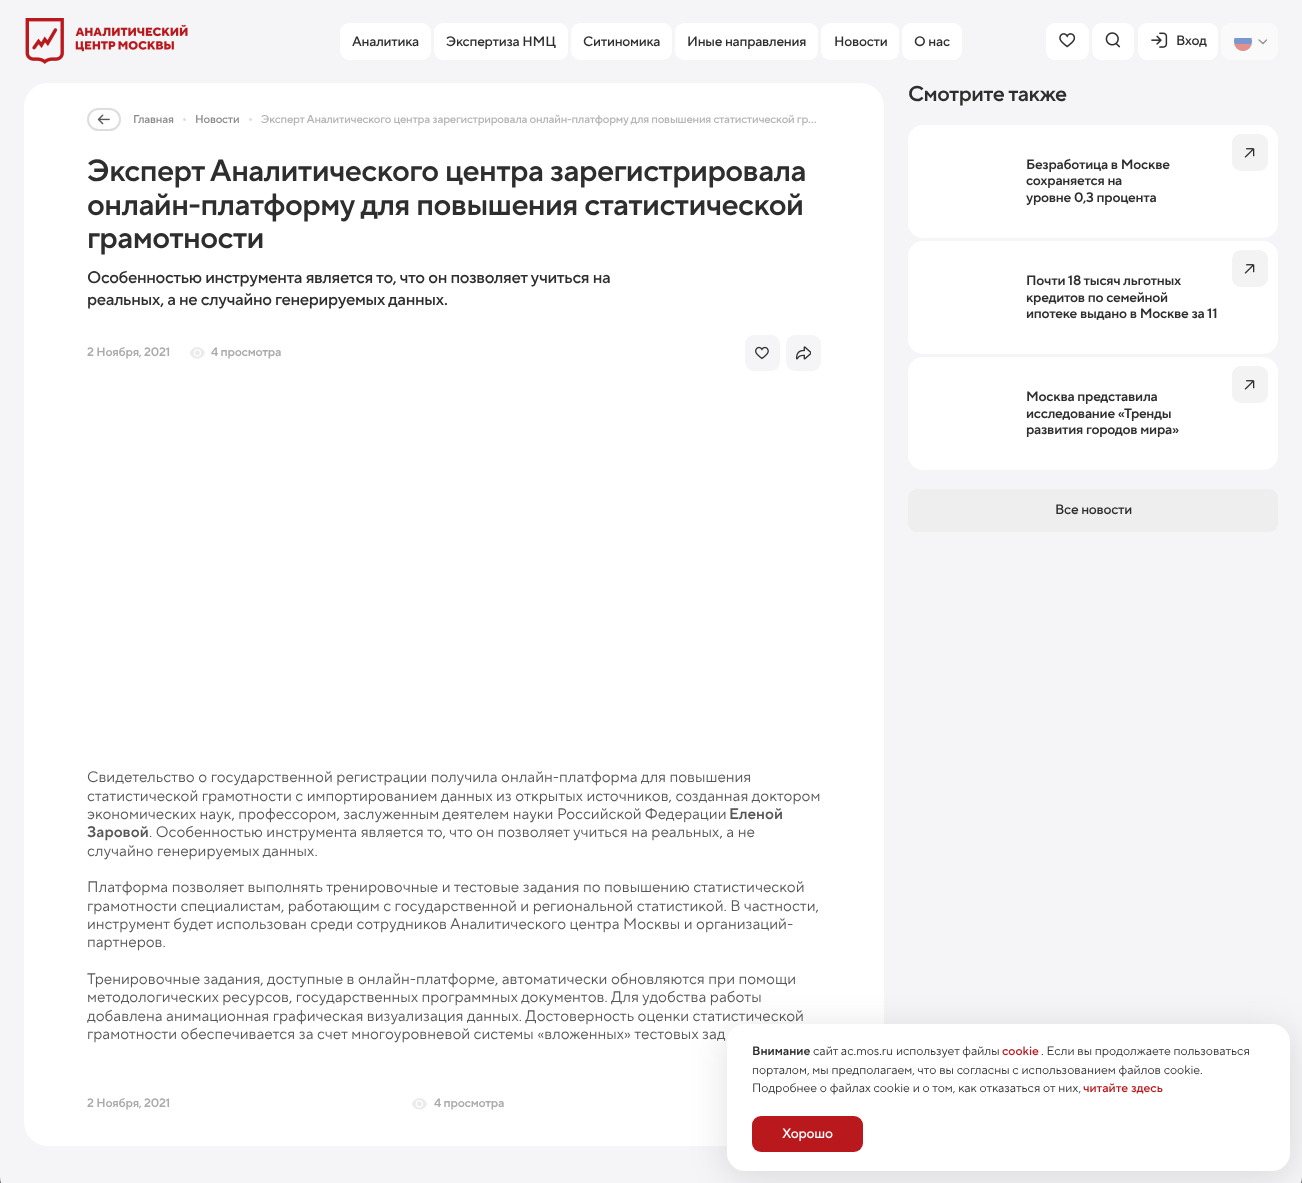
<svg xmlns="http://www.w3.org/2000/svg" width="1302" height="1183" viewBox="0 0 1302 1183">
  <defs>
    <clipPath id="clip1"><rect x="1234" y="32" width="18" height="19" rx="9"/></clipPath>
    <filter id="blur1" x="-50%" y="-200%" width="200%" height="500%"><feGaussianBlur stdDeviation="18.5"/></filter>
  </defs>
  <rect width="100%" height="100%" fill="#f5f5f7"/>
  <image x="25" y="18" width="163" height="46" href="img1.png"/>
  <rect x="340" y="23" width="91" height="37" rx="9" fill="#ffffff"/>
  <text x="352" y="46" font-family="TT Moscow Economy" font-size="13.75" font-weight="500" letter-spacing="-0.25" fill="#2e2e2e">Аналитика</text>
  <rect x="434" y="23" width="134" height="37" rx="9" fill="#ffffff"/>
  <text x="446" y="46" font-family="TT Moscow Economy" font-size="13.75" font-weight="500" letter-spacing="-0.25" fill="#2e2e2e">Экспертиза НМЦ</text>
  <rect x="571" y="23" width="101" height="37" rx="9" fill="#ffffff"/>
  <text x="583" y="46" font-family="TT Moscow Economy" font-size="13.75" font-weight="500" letter-spacing="-0.25" fill="#2e2e2e">Ситиномика</text>
  <rect x="675" y="23" width="143" height="37" rx="9" fill="#ffffff"/>
  <text x="687" y="46" font-family="TT Moscow Economy" font-size="13.75" font-weight="500" letter-spacing="-0.25" fill="#2e2e2e">Иные направления</text>
  <rect x="821" y="23" width="78" height="37" rx="9" fill="#ffffff"/>
  <text x="834" y="46" font-family="TT Moscow Economy" font-size="13.75" font-weight="500" letter-spacing="-0.25" fill="#2e2e2e">Новости</text>
  <rect x="902" y="23" width="60" height="37" rx="9" fill="#ffffff"/>
  <text x="914" y="46" font-family="TT Moscow Economy" font-size="13.75" font-weight="500" letter-spacing="-0.25" fill="#2e2e2e">О нас</text>
  <rect x="1046" y="23" width="43" height="37" rx="9" fill="#ffffff"/>
  <image x="1059" y="33" width="17" height="15" href="img2.png"/>
  <rect x="1092" y="23" width="42" height="37" rx="9" fill="#ffffff"/>
  <image x="1105" y="32" width="16" height="16" href="img3.png"/>
  <rect x="1138" y="23" width="80" height="37" rx="9" fill="#ffffff"/>
  <image x="1151" y="32" width="17" height="16" href="img4.png"/>
  <text x="1176" y="45" font-family="TT Moscow Economy" font-size="13.75" font-weight="500" letter-spacing="-0.25" fill="#2e2e2e">Вход</text>
  <rect x="1221" y="23" width="57" height="37" rx="9" fill="#fafafb"/>
  <g clip-path="url(#clip1)">
    <path d="M1234 38H1252V42C1252 47 1248 51 1243 51C1238 51 1234 47 1234 42Z" fill="#7b97cf"/>
    <rect x="1234" y="44" width="18" height="7" fill="#e5908b"/>
  </g>
  <path d="M1266.5 40L1263 43.5L1259 40" fill="none" stroke="#929293" stroke-width="1.3" stroke-linecap="round"/>
  <rect x="24" y="83" width="860" height="1063" rx="24" fill="#ffffff"/>
  <rect x="88" y="109" width="32" height="21" rx="10.5" fill="none" stroke="#dddddd" stroke-width="2"/>
  <image x="97" y="114" width="13" height="11" href="img5.png"/>
  <text x="133" y="123" font-family="TT Moscow Economy" font-size="11.45" font-weight="500" letter-spacing="-0.23" fill="#8a8a8a">Главная</text>
  <circle cx="184.5" cy="119.5" r="1.5" fill="#dedede"/>
  <text x="195" y="123" font-family="TT Moscow Economy" font-size="11.45" font-weight="500" letter-spacing="-0.23" fill="#8a8a8a">Новости</text>
  <circle cx="250.5" cy="119.5" r="1.5" fill="#dedede"/>
  <text x="261" y="123" font-family="TT Moscow Economy" font-size="11.45" font-weight="500" letter-spacing="-0.23" fill="#b4b4b4">Эксперт Аналитического центра зарегистрировала онлайн-платформу для повышения статистической гр…</text>
  <text x="87" y="181" font-family="TT Moscow Economy" font-size="30.6" font-weight="600" letter-spacing="-0.6" fill="#2e2e2e">Эксперт Аналитического центра зарегистрировала</text>
  <text x="87" y="215" font-family="TT Moscow Economy" font-size="30.6" font-weight="600" letter-spacing="-0.6" fill="#2e2e2e">онлайн-платформу для повышения статистической</text>
  <text x="87" y="248" font-family="TT Moscow Economy" font-size="30.6" font-weight="600" letter-spacing="-0.6" fill="#2e2e2e">грамотности</text>
  <text x="87" y="283" font-family="TT Moscow Economy" font-size="16.8" font-weight="500" letter-spacing="-0.35" fill="#2e2e2e">Особенностью инструмента является то, что он позволяет учиться на</text>
  <text x="87" y="305" font-family="TT Moscow Economy" font-size="16.8" font-weight="500" letter-spacing="-0.35" fill="#2e2e2e">реальных, а не случайно генерируемых данных.</text>
  <text x="87" y="356" font-family="TT Moscow Economy" font-size="12.25" font-weight="600" letter-spacing="-0.25" fill="#ababab">2 Ноября, 2021</text>
  <image x="190" y="347" width="15" height="12" href="img6.png"/>
  <text x="211" y="356" font-family="TT Moscow Economy" font-size="12.25" font-weight="600" letter-spacing="-0.25" fill="#ababab">4 просмотра</text>
  <rect x="745" y="335" width="35" height="36" rx="9" fill="#f5f5f7"/>
  <image x="755" y="346" width="14" height="14" href="img7.png"/>
  <rect x="786" y="335" width="35" height="36" rx="9" fill="#f5f5f7"/>
  <image x="796" y="346" width="15" height="14" href="img8.png"/>
  <text x="87" y="782" font-family="TT Moscow Economy" font-size="15.3" fill="#585858">Свидетельство о государственной регистрации получила онлайн-платформа для повышения</text>
  <text x="87" y="801" font-family="TT Moscow Economy" font-size="15.3" fill="#585858">статистической грамотности с импортированием данных из открытых источников, созданная доктором</text>
  <text x="87" y="819" font-family="TT Moscow Economy" font-size="15.3" fill="#585858">экономических наук, профессором, заслуженным деятелем науки Российской Федерации</text>
  <text x="729" y="819" font-family="TT Moscow Economy" font-size="15.3" font-weight="600" fill="#585858">Еленой</text>
  <text x="87" y="837" font-family="TT Moscow Economy" font-size="15.3" font-weight="600" fill="#585858">Заровой</text>
  <text x="149" y="837" font-family="TT Moscow Economy" font-size="15.3" fill="#585858">. Особенностью инструмента является то, что он позволяет учиться на реальных, а не</text>
  <text x="87" y="856" font-family="TT Moscow Economy" font-size="15.3" fill="#585858">случайно генерируемых данных.</text>
  <text x="87" y="892" font-family="TT Moscow Economy" font-size="15.3" fill="#585858">Платформа позволяет выполнять тренировочные и тестовые задания по повышению статистической</text>
  <text x="87" y="911" font-family="TT Moscow Economy" font-size="15.3" fill="#585858">грамотности специалистам, работающим с государственной и региональной статистикой. В частности,</text>
  <text x="87" y="929" font-family="TT Moscow Economy" font-size="15.3" fill="#585858">инструмент будет использован среди сотрудников Аналитического центра Москвы и организаций-</text>
  <text x="87" y="947" font-family="TT Moscow Economy" font-size="15.3" fill="#585858">партнеров.</text>
  <text x="87" y="984" font-family="TT Moscow Economy" font-size="15.3" fill="#585858">Тренировочные задания, доступные в онлайн-платформе, автоматически обновляются при помощи</text>
  <text x="87" y="1002" font-family="TT Moscow Economy" font-size="15.3" fill="#585858">методологических ресурсов, государственных программных документов. Для удобства работы</text>
  <text x="87" y="1021" font-family="TT Moscow Economy" font-size="15.3" fill="#585858">добавлена анимационная графическая визуализация данных. Достоверность оценки статистической</text>
  <text x="87" y="1039" font-family="TT Moscow Economy" font-size="15.3" fill="#585858">грамотности обеспечивается за счет многоуровневой системы «вложенных» тестовых зад</text>
  <text x="87" y="1107" font-family="TT Moscow Economy" font-size="12.25" font-weight="600" letter-spacing="-0.25" fill="#ababab">2 Ноября, 2021</text>
  <image x="412" y="1098" width="15" height="12" href="img6.png"/>
  <text x="434" y="1107" font-family="TT Moscow Economy" font-size="12.25" font-weight="600" letter-spacing="-0.25" fill="#ababab">4 просмотра</text>
  <text x="908" y="101" font-family="TT Moscow Economy" font-size="21.5" font-weight="600" letter-spacing="-0.5" fill="#2e2e2e">Смотрите также</text>
  <rect x="908" y="125" width="370" height="113" rx="15" fill="#ffffff"/>
  <rect x="1232" y="134" width="36" height="37" rx="9" fill="#f3f3f3"/>
  <image x="1244" y="148" width="11" height="10" href="img9.png"/>
  <text x="1026" y="169" font-family="TT Moscow Economy" font-size="13.75" font-weight="600" letter-spacing="-0.25" fill="#2e2e2e">Безработица в Москве</text>
  <text x="1026" y="185" font-family="TT Moscow Economy" font-size="13.75" font-weight="600" letter-spacing="-0.25" fill="#2e2e2e">сохраняется на</text>
  <text x="1026" y="202" font-family="TT Moscow Economy" font-size="13.75" font-weight="600" letter-spacing="-0.25" fill="#2e2e2e">уровне 0,3 процента</text>
  <rect x="908" y="241" width="370" height="113" rx="15" fill="#ffffff"/>
  <rect x="1232" y="250" width="36" height="37" rx="9" fill="#f3f3f3"/>
  <image x="1244" y="264" width="11" height="10" href="img9.png"/>
  <text x="1026" y="285" font-family="TT Moscow Economy" font-size="13.75" font-weight="600" letter-spacing="-0.25" fill="#2e2e2e">Почти 18 тысяч льготных</text>
  <text x="1026" y="302" font-family="TT Moscow Economy" font-size="13.75" font-weight="600" letter-spacing="-0.25" fill="#2e2e2e">кредитов по семейной</text>
  <text x="1026" y="318" font-family="TT Moscow Economy" font-size="13.75" font-weight="600" letter-spacing="-0.25" fill="#2e2e2e">ипотеке выдано в Москве за 11</text>
  <rect x="908" y="357" width="370" height="113" rx="15" fill="#ffffff"/>
  <rect x="1232" y="366" width="36" height="37" rx="9" fill="#f3f3f3"/>
  <image x="1244" y="380" width="11" height="10" href="img9.png"/>
  <text x="1026" y="401" font-family="TT Moscow Economy" font-size="13.75" font-weight="600" letter-spacing="-0.25" fill="#2e2e2e">Москва представила</text>
  <text x="1026" y="418" font-family="TT Moscow Economy" font-size="13.75" font-weight="600" letter-spacing="-0.25" fill="#2e2e2e">исследование «Тренды</text>
  <text x="1026" y="434" font-family="TT Moscow Economy" font-size="13.75" font-weight="600" letter-spacing="-0.25" fill="#2e2e2e">развития городов мира»</text>
  <rect x="908" y="489" width="370" height="43" rx="9" fill="#eeeeee"/>
  <text x="1055" y="514" font-family="TT Moscow Economy" font-size="13.75" font-weight="500" letter-spacing="-0.25" fill="#2e2e2e">Все новости</text>
  <path d="M1279 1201V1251H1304C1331 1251 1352 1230 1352 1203V1177H1302C1302 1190 1292 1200 1279 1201Z" fill="#2e2e2e"/>
  <rect x="727" y="1030" width="563" height="147" rx="18" fill="#000000" fill-opacity="0.12" filter="url(#blur1)"/>
  <rect x="727" y="1024" width="563" height="147" rx="18" fill="#ffffff"/>
  <text x="752" y="1055" font-family="TT Moscow Economy" font-size="12.25" font-weight="600" fill="#2e2e2e">Внимание</text>
  <text x="813" y="1055" font-family="TT Moscow Economy" font-size="12.25" fill="#2e2e2e">сайт ac.mos.ru использует файлы</text>
  <text x="1002" y="1055" font-family="TT Moscow Economy" font-size="12.25" font-weight="500" fill="#b9181d">cookie</text>
  <text x="1041" y="1055" font-family="TT Moscow Economy" font-size="12.25" fill="#2e2e2e">. Если вы продолжаете пользоваться</text>
  <text x="752" y="1074" font-family="TT Moscow Economy" font-size="12.25" fill="#2e2e2e">порталом, мы предполагаем, что вы согласны с использованием файлов cookie.</text>
  <text x="752" y="1092" font-family="TT Moscow Economy" font-size="12.25" fill="#2e2e2e">Подробнее о файлах cookie и о том, как отказаться от них,</text>
  <text x="1083" y="1092" font-family="TT Moscow Economy" font-size="12.25" font-weight="500" fill="#b9181d">читайте здесь</text>
  <rect x="752" y="1116" width="111" height="36" rx="9" fill="#b9181d"/>
  <text x="782" y="1138" font-family="TT Moscow Economy" font-size="13.75" font-weight="500" letter-spacing="-0.25" fill="#ffffff">Хорошо</text>
  <path d="M-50 1177V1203C-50 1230-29 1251-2 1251H23V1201C10 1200 0 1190 0 1177Z" fill="#2e2e2e"/>
</svg>
